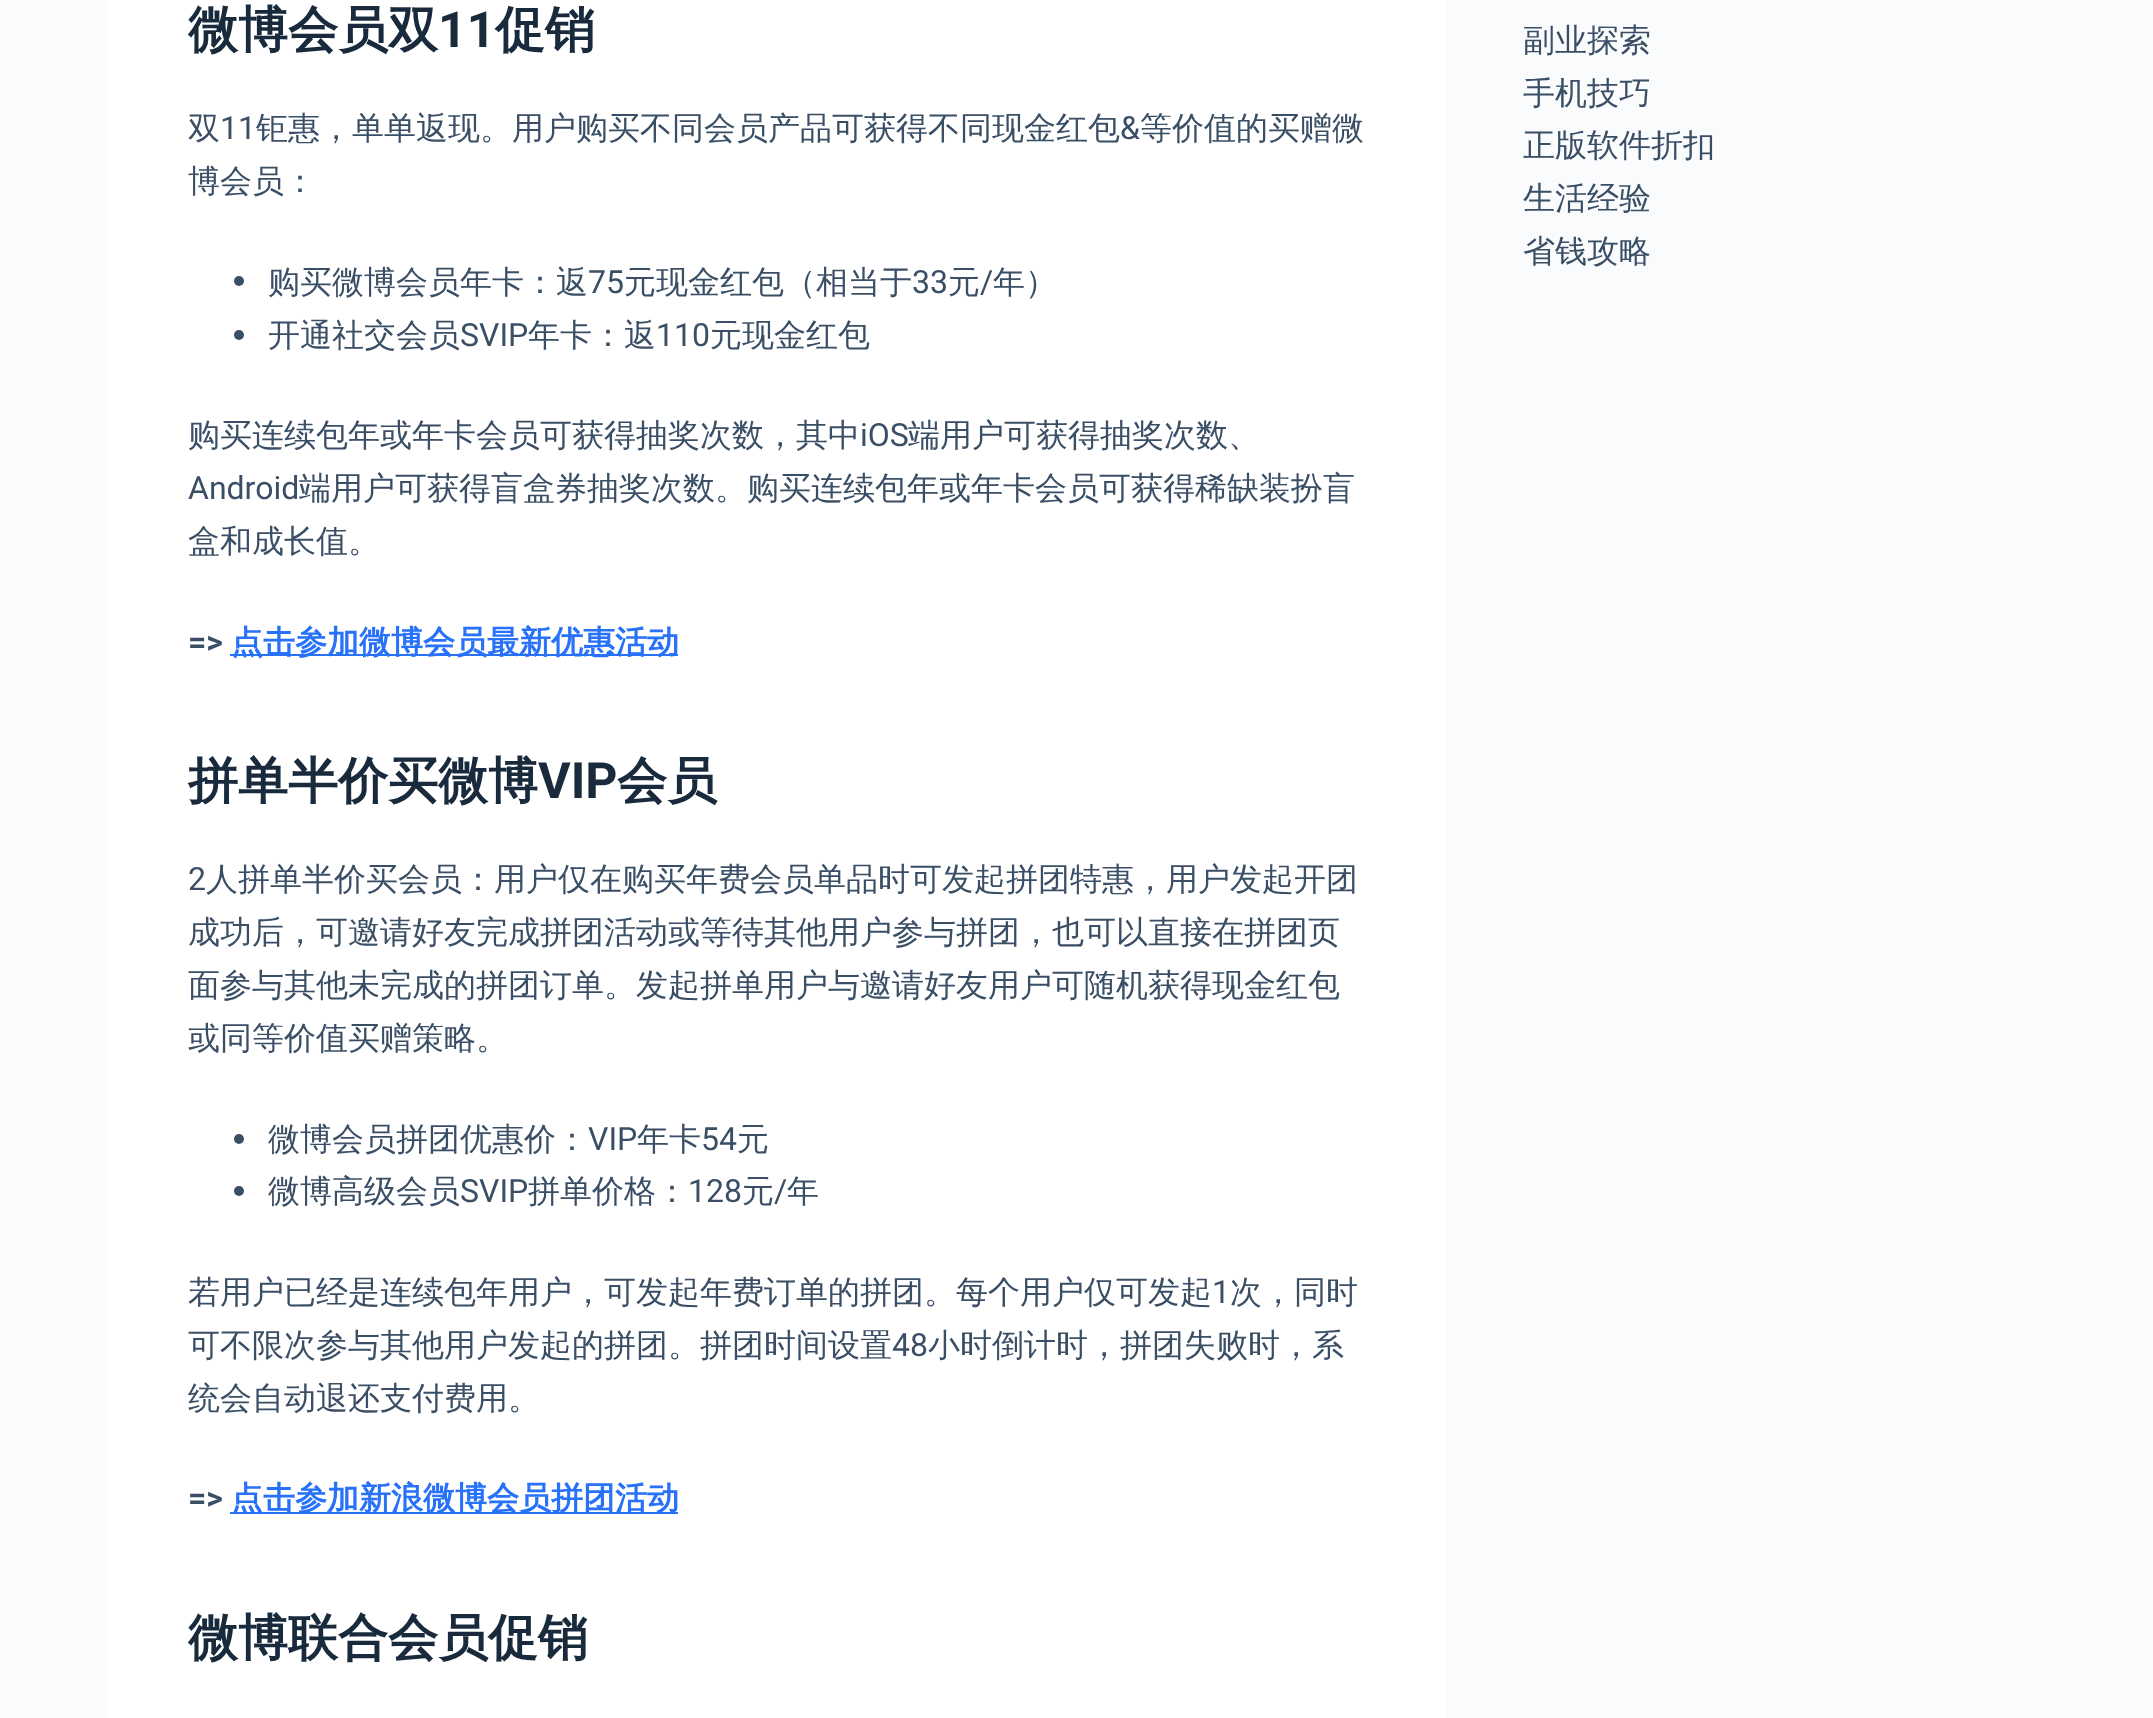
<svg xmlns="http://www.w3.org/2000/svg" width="2153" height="1718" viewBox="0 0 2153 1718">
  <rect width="100%" height="100%" fill="#fafbfc"/>
  <rect x="108" y="0" width="1338" height="1718" fill="#ffffff"/>
  <text x="188" y="47" font-family="WenQuanYi Zen Hei" font-size="50" font-weight="bold" fill="#192a3d">微博会员双</text>
  <text x="438" y="47" font-family="Roboto" font-size="50" font-weight="bold" fill="#192a3d">11</text>
  <text x="495" y="47" font-family="WenQuanYi Zen Hei" font-size="50" font-weight="bold" fill="#192a3d">促销</text>
  <text x="188" y="139" font-family="WenQuanYi Zen Hei" font-size="32" font-weight="500" fill="#3a4f66">双</text>
  <text x="220" y="139" font-family="Roboto" font-size="32" fill="#3a4f66">11</text>
  <text x="256" y="139" font-family="WenQuanYi Zen Hei" font-size="32" font-weight="500" fill="#3a4f66">钜惠，单单返现。用户购买不同会员产品可获得不同现金红包</text>
  <text x="1120" y="139" font-family="Roboto" font-size="32" fill="#3a4f66">&amp;</text>
  <text x="1140" y="139" font-family="WenQuanYi Zen Hei" font-size="32" font-weight="500" fill="#3a4f66">等价值的买赠微</text>
  <text x="188" y="192" font-family="WenQuanYi Zen Hei" font-size="32" font-weight="500" fill="#3a4f66">博会员：</text>
  <circle cx="239" cy="281" r="5" fill="#3a4f66"/>
  <text x="268" y="293" font-family="WenQuanYi Zen Hei" font-size="32" font-weight="500" fill="#3a4f66">购买微博会员年卡：返</text>
  <text x="588" y="293" font-family="Roboto" font-size="32" fill="#3a4f66">75</text>
  <text x="624" y="293" font-family="WenQuanYi Zen Hei" font-size="32" font-weight="500" fill="#3a4f66">元现金红包（相当于</text>
  <text x="912" y="293" font-family="Roboto" font-size="32" fill="#3a4f66">33</text>
  <text x="948" y="293" font-family="WenQuanYi Zen Hei" font-size="32" font-weight="500" fill="#3a4f66">元</text>
  <text x="980" y="293" font-family="Roboto" font-size="32" fill="#3a4f66">/</text>
  <text x="993" y="293" font-family="WenQuanYi Zen Hei" font-size="32" font-weight="500" fill="#3a4f66">年）</text>
  <circle cx="239" cy="335" r="5" fill="#3a4f66"/>
  <text x="268" y="346" font-family="WenQuanYi Zen Hei" font-size="32" font-weight="500" fill="#3a4f66">开通社交会员</text>
  <text x="460" y="346" font-family="Roboto" font-size="32" fill="#3a4f66">SVIP</text>
  <text x="528" y="346" font-family="WenQuanYi Zen Hei" font-size="32" font-weight="500" fill="#3a4f66">年卡：返</text>
  <text x="656" y="346" font-family="Roboto" font-size="32" fill="#3a4f66">110</text>
  <text x="710" y="346" font-family="WenQuanYi Zen Hei" font-size="32" font-weight="500" fill="#3a4f66">元现金红包</text>
  <text x="188" y="446" font-family="WenQuanYi Zen Hei" font-size="32" font-weight="500" fill="#3a4f66">购买连续包年或年卡会员可获得抽奖次数，其中</text>
  <text x="860" y="446" font-family="Roboto" font-size="32" fill="#3a4f66">iOS</text>
  <text x="908" y="446" font-family="WenQuanYi Zen Hei" font-size="32" font-weight="500" fill="#3a4f66">端用户可获得抽奖次数、</text>
  <text x="188" y="499" font-family="Roboto" font-size="32" fill="#3a4f66">Android</text>
  <text x="299" y="499" font-family="WenQuanYi Zen Hei" font-size="32" font-weight="500" fill="#3a4f66">端用户可获得盲盒券抽奖次数。购买连续包年或年卡会员可获得稀缺装扮盲</text>
  <text x="188" y="552" font-family="WenQuanYi Zen Hei" font-size="32" font-weight="500" fill="#3a4f66">盒和成长值。</text>
  <text x="188" y="653" font-family="Roboto" font-size="32" font-weight="bold" fill="#3a4f66">=&gt;</text>
  <rect x="230" y="654" width="448" height="2" fill="#2872fa"/>
  <text x="231" y="653" font-family="WenQuanYi Zen Hei" font-size="32" font-weight="bold" fill="#2872fa">点击参加微博会员最新优惠活动</text>
  <text x="188" y="798" font-family="WenQuanYi Zen Hei" font-size="50" font-weight="bold" fill="#192a3d">拼单半价买微博</text>
  <text x="538" y="798" font-family="Roboto" font-size="50" font-weight="bold" fill="#192a3d">VIP</text>
  <text x="617" y="798" font-family="WenQuanYi Zen Hei" font-size="50" font-weight="bold" fill="#192a3d">会员</text>
  <text x="188" y="890" font-family="Roboto" font-size="32" fill="#3a4f66">2</text>
  <text x="206" y="890" font-family="WenQuanYi Zen Hei" font-size="32" font-weight="500" fill="#3a4f66">人拼单半价买会员：用户仅在购买年费会员单品时可发起拼团特惠，用户发起开团</text>
  <text x="188" y="943" font-family="WenQuanYi Zen Hei" font-size="32" font-weight="500" fill="#3a4f66">成功后，可邀请好友完成拼团活动或等待其他用户参与拼团，也可以直接在拼团页</text>
  <text x="188" y="996" font-family="WenQuanYi Zen Hei" font-size="32" font-weight="500" fill="#3a4f66">面参与其他未完成的拼团订单。发起拼单用户与邀请好友用户可随机获得现金红包</text>
  <text x="188" y="1049" font-family="WenQuanYi Zen Hei" font-size="32" font-weight="500" fill="#3a4f66">或同等价值买赠策略。</text>
  <circle cx="239" cy="1139" r="5" fill="#3a4f66"/>
  <text x="268" y="1150" font-family="WenQuanYi Zen Hei" font-size="32" font-weight="500" fill="#3a4f66">微博会员拼团优惠价：</text>
  <text x="588" y="1150" font-family="Roboto" font-size="32" fill="#3a4f66">VIP</text>
  <text x="637" y="1150" font-family="WenQuanYi Zen Hei" font-size="32" font-weight="500" fill="#3a4f66">年卡</text>
  <text x="701" y="1150" font-family="Roboto" font-size="32" fill="#3a4f66">54</text>
  <text x="737" y="1150" font-family="WenQuanYi Zen Hei" font-size="32" font-weight="500" fill="#3a4f66">元</text>
  <circle cx="239" cy="1191" r="5" fill="#3a4f66"/>
  <text x="268" y="1202" font-family="WenQuanYi Zen Hei" font-size="32" font-weight="500" fill="#3a4f66">微博高级会员</text>
  <text x="460" y="1202" font-family="Roboto" font-size="32" fill="#3a4f66">SVIP</text>
  <text x="528" y="1202" font-family="WenQuanYi Zen Hei" font-size="32" font-weight="500" fill="#3a4f66">拼单价格：</text>
  <text x="688" y="1202" font-family="Roboto" font-size="32" fill="#3a4f66">128</text>
  <text x="742" y="1202" font-family="WenQuanYi Zen Hei" font-size="32" font-weight="500" fill="#3a4f66">元</text>
  <text x="774" y="1202" font-family="Roboto" font-size="32" fill="#3a4f66">/</text>
  <text x="787" y="1202" font-family="WenQuanYi Zen Hei" font-size="32" font-weight="500" fill="#3a4f66">年</text>
  <text x="188" y="1303" font-family="WenQuanYi Zen Hei" font-size="32" font-weight="500" fill="#3a4f66">若用户已经是连续包年用户，可发起年费订单的拼团。每个用户仅可发起</text>
  <text x="1212" y="1303" font-family="Roboto" font-size="32" fill="#3a4f66">1</text>
  <text x="1230" y="1303" font-family="WenQuanYi Zen Hei" font-size="32" font-weight="500" fill="#3a4f66">次，同时</text>
  <text x="188" y="1356" font-family="WenQuanYi Zen Hei" font-size="32" font-weight="500" fill="#3a4f66">可不限次参与其他用户发起的拼团。拼团时间设置</text>
  <text x="892" y="1356" font-family="Roboto" font-size="32" fill="#3a4f66">48</text>
  <text x="928" y="1356" font-family="WenQuanYi Zen Hei" font-size="32" font-weight="500" fill="#3a4f66">小时倒计时，拼团失败时，系</text>
  <text x="188" y="1409" font-family="WenQuanYi Zen Hei" font-size="32" font-weight="500" fill="#3a4f66">统会自动退还支付费用。</text>
  <text x="188" y="1509" font-family="Roboto" font-size="32" font-weight="bold" fill="#3a4f66">=&gt;</text>
  <rect x="230" y="1512" width="448" height="2" fill="#2872fa"/>
  <text x="231" y="1509" font-family="WenQuanYi Zen Hei" font-size="32" font-weight="bold" fill="#2872fa">点击参加新浪微博会员拼团活动</text>
  <text x="188" y="1655" font-family="WenQuanYi Zen Hei" font-size="50" font-weight="bold" fill="#192a3d">微博联合会员促销</text>
  <text x="1523" y="51" font-family="WenQuanYi Zen Hei" font-size="32" font-weight="500" fill="#3a4f66">副业探索</text>
  <text x="1523" y="104" font-family="WenQuanYi Zen Hei" font-size="32" font-weight="500" fill="#3a4f66">手机技巧</text>
  <text x="1523" y="156" font-family="WenQuanYi Zen Hei" font-size="32" font-weight="500" fill="#3a4f66">正版软件折扣</text>
  <text x="1523" y="209" font-family="WenQuanYi Zen Hei" font-size="32" font-weight="500" fill="#3a4f66">生活经验</text>
  <text x="1523" y="262" font-family="WenQuanYi Zen Hei" font-size="32" font-weight="500" fill="#3a4f66">省钱攻略</text>
</svg>
